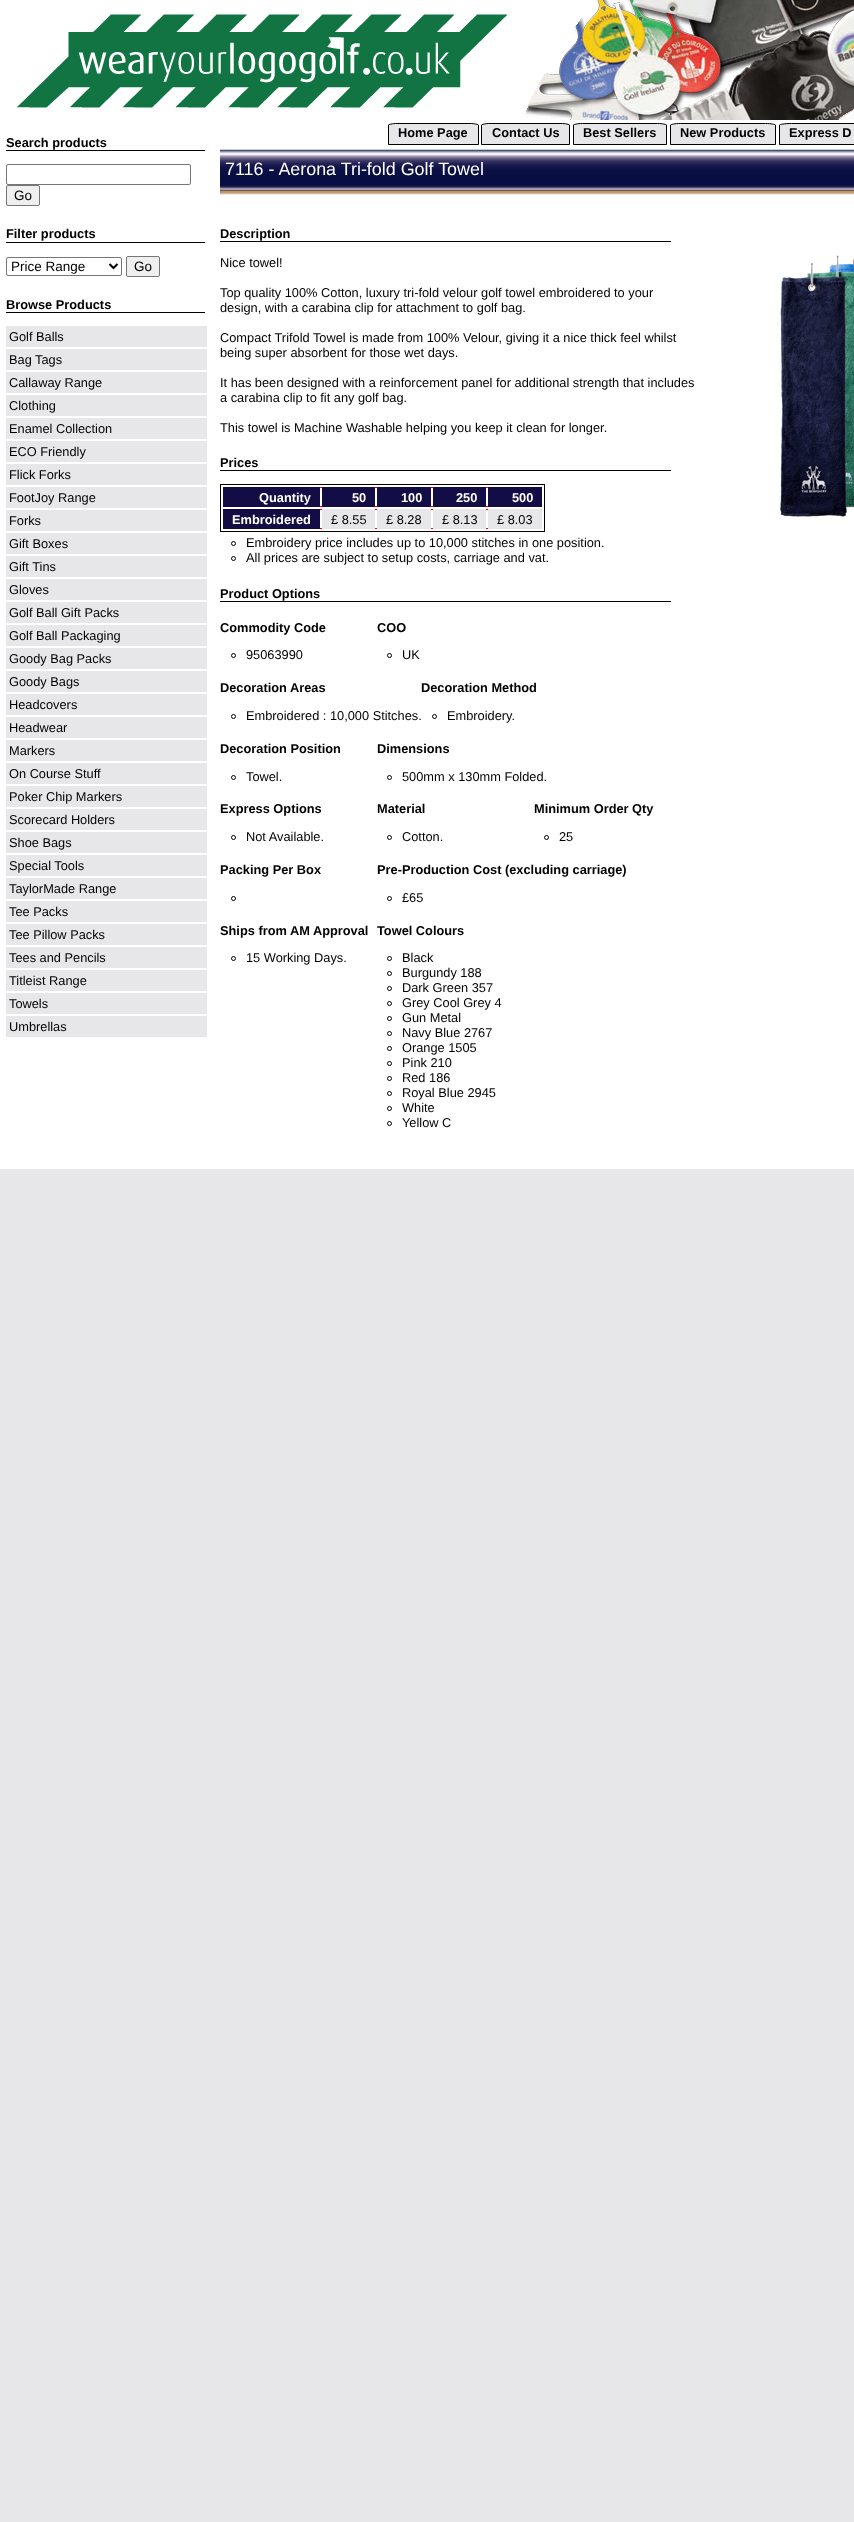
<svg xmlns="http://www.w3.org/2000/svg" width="854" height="2522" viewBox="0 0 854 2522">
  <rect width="100%" height="100%" fill="#e7e7e9"/>
  <rect x="0" y="0" width="854" height="1169" fill="#ffffff"/>
  <image x="17" y="0" width="837" height="120" href="img1.png"/>
  <path d="M397 123H470C475 123 479 124 479 125V145H388V125C388 124 392 123 397 123Z" fill="#e7e7e9"/>
  <path d="M397 123.5H470C474.5 123.5 478.5 124.5 478.5 125V144.5H388.5V125C388.5 124.5 392.5 123.5 397 123.5Z" fill="none" stroke="#000000"/>
  <text x="398" y="137" font-family="Liberation Sans" font-size="12.8" font-weight="bold" fill="#000000">Home Page</text>
  <path d="M490 123H561C566 123 570 124 570 125V145H481V125C481 124 485 123 490 123Z" fill="#e7e7e9"/>
  <path d="M490 123.5H561C565.5 123.5 569.5 124.5 569.5 125V144.5H481.5V125C481.5 124.5 485.5 123.5 490 123.5Z" fill="none" stroke="#000000"/>
  <text x="492" y="137" font-family="Liberation Sans" font-size="12.8" font-weight="bold" fill="#000000">Contact Us</text>
  <path d="M582 123H658C663 123 667 124 667 125V145H573V125C573 124 577 123 582 123Z" fill="#e7e7e9"/>
  <path d="M582.5 123.5H657.5C662.5 123.5 666.5 124.5 666.5 125V144.5H573.5V125C573.5 124.5 577.5 123.5 582.5 123.5Z" fill="none" stroke="#000000"/>
  <text x="583" y="137" font-family="Liberation Sans" font-size="12.8" font-weight="bold" fill="#000000">Best Sellers</text>
  <path d="M681 123H765C771 123 776 124 776 125V145H670V125C670 124 675 123 681 123Z" fill="#e7e7e9"/>
  <path d="M680.5 123.5H765.5C771 123.5 775.5 124.5 775.5 125V144.5H670.5V125C670.5 124.5 675 123.5 680.5 123.5Z" fill="none" stroke="#000000"/>
  <text x="680" y="137" font-family="Liberation Sans" font-size="12.8" font-weight="bold" fill="#000000">New Products</text>
  <path d="M791 123H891C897 123 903 124 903 125V145H779V125C779 124 785 123 791 123Z" fill="#e7e7e9"/>
  <path d="M791.5 123.5H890.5C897 123.5 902.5 124.5 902.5 125V144.5H779.5V125C779.5 124.5 785 123.5 791.5 123.5Z" fill="none" stroke="#000000"/>
  <text x="789" y="137" font-family="Liberation Sans" font-size="12.8" font-weight="bold" fill="#000000">Express D</text>
  <rect x="6" y="150" width="199" height="1" fill="#000000"/>
  <text x="6" y="147" font-family="Liberation Sans" font-size="12.8" font-weight="bold" fill="#000000">Search products</text>
  <rect x="6.5" y="164.5" width="184" height="20" rx="1.5" fill="none" stroke="#767676"/>
  <rect x="6.5" y="185.5" width="33" height="20" rx="1.5" fill="#efefef" stroke="#767676"/>
  <text x="14" y="200" font-family="Liberation Sans" font-size="13.5" fill="#000000">Go</text>
  <rect x="6" y="242" width="199" height="1" fill="#000000"/>
  <text x="6" y="238" font-family="Liberation Sans" font-size="12.8" font-weight="bold" fill="#000000">Filter products</text>
  <rect x="6.5" y="257.5" width="115" height="18" rx="1.5" fill="none" stroke="#767676"/>
  <path d="M109.5 264L113.5 268L117.5 264" fill="none" stroke="#000000" stroke-width="2"/>
  <text x="11" y="271" font-family="Liberation Sans" font-size="13.5" fill="#000000">Price Range</text>
  <rect x="126.5" y="256.5" width="33" height="20" rx="1.5" fill="#efefef" stroke="#767676"/>
  <text x="134" y="271" font-family="Liberation Sans" font-size="13.5" fill="#000000">Go</text>
  <rect x="6" y="312" width="199" height="1" fill="#000000"/>
  <text x="6" y="309" font-family="Liberation Sans" font-size="12.8" font-weight="bold" fill="#000000">Browse Products</text>
  <rect x="6" y="326" width="201" height="21" fill="#e7e7e9"/>
  <text x="9" y="341" font-family="Liberation Sans" font-size="12.8" fill="#000000">Golf Balls</text>
  <rect x="6" y="349" width="201" height="21" fill="#e7e7e9"/>
  <text x="9" y="364" font-family="Liberation Sans" font-size="12.8" fill="#000000">Bag Tags</text>
  <rect x="6" y="372" width="201" height="21" fill="#e7e7e9"/>
  <text x="9" y="387" font-family="Liberation Sans" font-size="12.8" fill="#000000">Callaway Range</text>
  <rect x="6" y="395" width="201" height="21" fill="#e7e7e9"/>
  <text x="9" y="410" font-family="Liberation Sans" font-size="12.8" fill="#000000">Clothing</text>
  <rect x="6" y="418" width="201" height="21" fill="#e7e7e9"/>
  <text x="9" y="433" font-family="Liberation Sans" font-size="12.8" fill="#000000">Enamel Collection</text>
  <rect x="6" y="441" width="201" height="21" fill="#e7e7e9"/>
  <text x="9" y="456" font-family="Liberation Sans" font-size="12.8" fill="#000000">ECO Friendly</text>
  <rect x="6" y="464" width="201" height="21" fill="#e7e7e9"/>
  <text x="9" y="479" font-family="Liberation Sans" font-size="12.8" fill="#000000">Flick Forks</text>
  <rect x="6" y="487" width="201" height="21" fill="#e7e7e9"/>
  <text x="9" y="502" font-family="Liberation Sans" font-size="12.8" fill="#000000">FootJoy Range</text>
  <rect x="6" y="510" width="201" height="21" fill="#e7e7e9"/>
  <text x="9" y="525" font-family="Liberation Sans" font-size="12.8" fill="#000000">Forks</text>
  <rect x="6" y="533" width="201" height="21" fill="#e7e7e9"/>
  <text x="9" y="548" font-family="Liberation Sans" font-size="12.8" fill="#000000">Gift Boxes</text>
  <rect x="6" y="556" width="201" height="21" fill="#e7e7e9"/>
  <text x="9" y="571" font-family="Liberation Sans" font-size="12.8" fill="#000000">Gift Tins</text>
  <rect x="6" y="579" width="201" height="21" fill="#e7e7e9"/>
  <text x="9" y="594" font-family="Liberation Sans" font-size="12.8" fill="#000000">Gloves</text>
  <rect x="6" y="602" width="201" height="21" fill="#e7e7e9"/>
  <text x="9" y="617" font-family="Liberation Sans" font-size="12.8" fill="#000000">Golf Ball Gift Packs</text>
  <rect x="6" y="625" width="201" height="21" fill="#e7e7e9"/>
  <text x="9" y="640" font-family="Liberation Sans" font-size="12.8" fill="#000000">Golf Ball Packaging</text>
  <rect x="6" y="648" width="201" height="21" fill="#e7e7e9"/>
  <text x="9" y="663" font-family="Liberation Sans" font-size="12.8" fill="#000000">Goody Bag Packs</text>
  <rect x="6" y="671" width="201" height="21" fill="#e7e7e9"/>
  <text x="9" y="686" font-family="Liberation Sans" font-size="12.8" fill="#000000">Goody Bags</text>
  <rect x="6" y="694" width="201" height="21" fill="#e7e7e9"/>
  <text x="9" y="709" font-family="Liberation Sans" font-size="12.8" fill="#000000">Headcovers</text>
  <rect x="6" y="717" width="201" height="21" fill="#e7e7e9"/>
  <text x="9" y="732" font-family="Liberation Sans" font-size="12.8" fill="#000000">Headwear</text>
  <rect x="6" y="740" width="201" height="21" fill="#e7e7e9"/>
  <text x="9" y="755" font-family="Liberation Sans" font-size="12.8" fill="#000000">Markers</text>
  <rect x="6" y="763" width="201" height="21" fill="#e7e7e9"/>
  <text x="9" y="778" font-family="Liberation Sans" font-size="12.8" fill="#000000">On Course Stuff</text>
  <rect x="6" y="786" width="201" height="21" fill="#e7e7e9"/>
  <text x="9" y="801" font-family="Liberation Sans" font-size="12.8" fill="#000000">Poker Chip Markers</text>
  <rect x="6" y="809" width="201" height="21" fill="#e7e7e9"/>
  <text x="9" y="824" font-family="Liberation Sans" font-size="12.8" fill="#000000">Scorecard Holders</text>
  <rect x="6" y="832" width="201" height="21" fill="#e7e7e9"/>
  <text x="9" y="847" font-family="Liberation Sans" font-size="12.8" fill="#000000">Shoe Bags</text>
  <rect x="6" y="855" width="201" height="21" fill="#e7e7e9"/>
  <text x="9" y="870" font-family="Liberation Sans" font-size="12.8" fill="#000000">Special Tools</text>
  <rect x="6" y="878" width="201" height="21" fill="#e7e7e9"/>
  <text x="9" y="893" font-family="Liberation Sans" font-size="12.8" fill="#000000">TaylorMade Range</text>
  <rect x="6" y="901" width="201" height="21" fill="#e7e7e9"/>
  <text x="9" y="916" font-family="Liberation Sans" font-size="12.8" fill="#000000">Tee Packs</text>
  <rect x="6" y="924" width="201" height="21" fill="#e7e7e9"/>
  <text x="9" y="939" font-family="Liberation Sans" font-size="12.8" fill="#000000">Tee Pillow Packs</text>
  <rect x="6" y="947" width="201" height="21" fill="#e7e7e9"/>
  <text x="9" y="962" font-family="Liberation Sans" font-size="12.8" fill="#000000">Tees and Pencils</text>
  <rect x="6" y="970" width="201" height="21" fill="#e7e7e9"/>
  <text x="9" y="985" font-family="Liberation Sans" font-size="12.8" fill="#000000">Titleist Range</text>
  <rect x="6" y="993" width="201" height="21" fill="#e7e7e9"/>
  <text x="9" y="1008" font-family="Liberation Sans" font-size="12.8" fill="#000000">Towels</text>
  <rect x="6" y="1016" width="201" height="21" fill="#e7e7e9"/>
  <text x="9" y="1031" font-family="Liberation Sans" font-size="12.8" fill="#000000">Umbrellas</text>
  <image x="220" y="149" width="634" height="46" href="img2.png"/>
  <text x="225" y="175" font-family="Liberation Sans" font-size="17.9" fill="#ffffff">7116 - Aerona Tri-fold Golf Towel</text>
  <rect x="220" y="241" width="451" height="1" fill="#000000"/>
  <text x="220" y="238" font-family="Liberation Sans" font-size="12.8" font-weight="bold" fill="#000000">Description</text>
  <text x="220" y="267" font-family="Liberation Sans" font-size="12.8" fill="#000000">Nice towel!</text>
  <text x="220" y="297" font-family="Liberation Sans" font-size="12.8" fill="#000000">Top quality 100% Cotton, luxury tri-fold velour golf towel embroidered to your</text>
  <text x="220" y="312" font-family="Liberation Sans" font-size="12.8" fill="#000000">design, with a carabina clip for attachment to golf bag.</text>
  <text x="220" y="342" font-family="Liberation Sans" font-size="12.8" fill="#000000">Compact Trifold Towel is made from 100% Velour, giving it a nice thick feel whilst</text>
  <text x="220" y="357" font-family="Liberation Sans" font-size="12.8" fill="#000000">being super absorbent for those wet days.</text>
  <text x="220" y="387" font-family="Liberation Sans" font-size="12.8" fill="#000000">It has been designed with a reinforcement panel for additional strength that includes</text>
  <text x="220" y="402" font-family="Liberation Sans" font-size="12.8" fill="#000000">a carabina clip to fit any golf bag.</text>
  <text x="220" y="432" font-family="Liberation Sans" font-size="12.8" fill="#000000">This towel is Machine Washable helping you keep it clean for longer.</text>
  <rect x="220" y="470" width="451" height="1" fill="#000000"/>
  <text x="220" y="467" font-family="Liberation Sans" font-size="12.8" font-weight="bold" fill="#000000">Prices</text>
  <rect x="220.5" y="484.5" width="324" height="47" fill="none" stroke="#000000"/>
  <rect x="223.5" y="487.5" width="318" height="19" fill="none" stroke="#ff0000"/>
  <rect x="223" y="487" width="97" height="20" fill="#120d44"/>
  <text x="259" y="502" font-family="Liberation Sans" font-size="12.8" font-weight="bold" fill="#ffffff">Quantity</text>
  <rect x="322" y="487" width="53" height="20" fill="#120d44"/>
  <text x="352" y="502" font-family="Liberation Sans" font-size="12.8" font-weight="bold" fill="#ffffff">50</text>
  <rect x="377" y="487" width="54" height="20" fill="#120d44"/>
  <text x="401" y="502" font-family="Liberation Sans" font-size="12.8" font-weight="bold" fill="#ffffff">100</text>
  <rect x="433" y="487" width="53" height="20" fill="#120d44"/>
  <text x="456" y="502" font-family="Liberation Sans" font-size="12.8" font-weight="bold" fill="#ffffff">250</text>
  <rect x="488" y="487" width="54" height="20" fill="#120d44"/>
  <text x="512" y="502" font-family="Liberation Sans" font-size="12.8" font-weight="bold" fill="#ffffff">500</text>
  <rect x="223.5" y="509.5" width="318" height="19" fill="none" stroke="#ff0000"/>
  <rect x="223" y="509" width="97" height="20" fill="#120d44"/>
  <text x="232" y="524" font-family="Liberation Sans" font-size="12.8" font-weight="bold" fill="#ffffff">Embroidered</text>
  <rect x="322" y="509" width="53" height="20" fill="#e7e7e9"/>
  <text x="331" y="524" font-family="Liberation Sans" font-size="12.8" fill="#000000">£ 8.55</text>
  <rect x="377" y="509" width="54" height="20" fill="#e7e7e9"/>
  <text x="386" y="524" font-family="Liberation Sans" font-size="12.8" fill="#000000">£ 8.28</text>
  <rect x="433" y="509" width="53" height="20" fill="#e7e7e9"/>
  <text x="442" y="524" font-family="Liberation Sans" font-size="12.8" fill="#000000">£ 8.13</text>
  <rect x="488" y="509" width="54" height="20" fill="#e7e7e9"/>
  <text x="497" y="524" font-family="Liberation Sans" font-size="12.8" fill="#000000">£ 8.03</text>
  <circle cx="233.5" cy="543.5" r="2" fill="none" stroke="#000000"/>
  <text x="246" y="547" font-family="Liberation Sans" font-size="12.8" fill="#000000">Embroidery price includes up to 10,000 stitches in one position.</text>
  <circle cx="233.5" cy="558.5" r="2" fill="none" stroke="#000000"/>
  <text x="246" y="562" font-family="Liberation Sans" font-size="12.8" fill="#000000">All prices are subject to setup costs, carriage and vat.</text>
  <rect x="220" y="601" width="451" height="1" fill="#000000"/>
  <text x="220" y="598" font-family="Liberation Sans" font-size="12.8" font-weight="bold" fill="#000000">Product Options</text>
  <text x="220" y="632" font-family="Liberation Sans" font-size="12.8" font-weight="bold" fill="#000000">Commodity Code</text>
  <circle cx="233.5" cy="655.5" r="2" fill="none" stroke="#000000"/>
  <text x="246" y="659" font-family="Liberation Sans" font-size="12.8" fill="#000000">95063990</text>
  <text x="377" y="632" font-family="Liberation Sans" font-size="12.8" font-weight="bold" fill="#000000">COO</text>
  <circle cx="389.5" cy="655.5" r="2" fill="none" stroke="#000000"/>
  <text x="402" y="659" font-family="Liberation Sans" font-size="12.8" fill="#000000">UK</text>
  <text x="220" y="692" font-family="Liberation Sans" font-size="12.8" font-weight="bold" fill="#000000">Decoration Areas</text>
  <circle cx="233.5" cy="716.5" r="2" fill="none" stroke="#000000"/>
  <text x="246" y="720" font-family="Liberation Sans" font-size="12.8" fill="#000000">Embroidered : 10,000 Stitches.</text>
  <text x="421" y="692" font-family="Liberation Sans" font-size="12.8" font-weight="bold" fill="#000000">Decoration Method</text>
  <circle cx="434.5" cy="716.5" r="2" fill="none" stroke="#000000"/>
  <text x="447" y="720" font-family="Liberation Sans" font-size="12.8" fill="#000000">Embroidery.</text>
  <text x="220" y="753" font-family="Liberation Sans" font-size="12.8" font-weight="bold" fill="#000000">Decoration Position</text>
  <circle cx="233.5" cy="777.5" r="2" fill="none" stroke="#000000"/>
  <text x="246" y="781" font-family="Liberation Sans" font-size="12.8" fill="#000000">Towel.</text>
  <text x="377" y="753" font-family="Liberation Sans" font-size="12.8" font-weight="bold" fill="#000000">Dimensions</text>
  <circle cx="389.5" cy="777.5" r="2" fill="none" stroke="#000000"/>
  <text x="402" y="781" font-family="Liberation Sans" font-size="12.8" fill="#000000">500mm x 130mm Folded.</text>
  <text x="220" y="813" font-family="Liberation Sans" font-size="12.8" font-weight="bold" fill="#000000">Express Options</text>
  <circle cx="233.5" cy="837.5" r="2" fill="none" stroke="#000000"/>
  <text x="246" y="841" font-family="Liberation Sans" font-size="12.8" fill="#000000">Not Available.</text>
  <text x="377" y="813" font-family="Liberation Sans" font-size="12.8" font-weight="bold" fill="#000000">Material</text>
  <circle cx="389.5" cy="837.5" r="2" fill="none" stroke="#000000"/>
  <text x="402" y="841" font-family="Liberation Sans" font-size="12.8" fill="#000000">Cotton.</text>
  <text x="534" y="813" font-family="Liberation Sans" font-size="12.8" font-weight="bold" fill="#000000">Minimum Order Qty</text>
  <circle cx="546.5" cy="837.5" r="2" fill="none" stroke="#000000"/>
  <text x="559" y="841" font-family="Liberation Sans" font-size="12.8" fill="#000000">25</text>
  <text x="220" y="874" font-family="Liberation Sans" font-size="12.8" font-weight="bold" fill="#000000">Packing Per Box</text>
  <circle cx="233.5" cy="898.5" r="2" fill="none" stroke="#000000"/>
  <text x="377" y="874" font-family="Liberation Sans" font-size="12.8" font-weight="bold" fill="#000000">Pre-Production Cost (excluding carriage)</text>
  <circle cx="389.5" cy="898.5" r="2" fill="none" stroke="#000000"/>
  <text x="402" y="902" font-family="Liberation Sans" font-size="12.8" fill="#000000">£65</text>
  <text x="220" y="935" font-family="Liberation Sans" font-size="12.8" font-weight="bold" fill="#000000">Ships from AM Approval</text>
  <circle cx="233.5" cy="958.5" r="2" fill="none" stroke="#000000"/>
  <text x="246" y="962" font-family="Liberation Sans" font-size="12.8" fill="#000000">15 Working Days.</text>
  <text x="377" y="935" font-family="Liberation Sans" font-size="12.8" font-weight="bold" fill="#000000">Towel Colours</text>
  <circle cx="389.5" cy="958.5" r="2" fill="none" stroke="#000000"/>
  <text x="402" y="962" font-family="Liberation Sans" font-size="12.8" fill="#000000">Black</text>
  <circle cx="389.5" cy="973.5" r="2" fill="none" stroke="#000000"/>
  <text x="402" y="977" font-family="Liberation Sans" font-size="12.8" fill="#000000">Burgundy 188</text>
  <circle cx="389.5" cy="988.5" r="2" fill="none" stroke="#000000"/>
  <text x="402" y="992" font-family="Liberation Sans" font-size="12.8" fill="#000000">Dark Green 357</text>
  <circle cx="389.5" cy="1003.5" r="2" fill="none" stroke="#000000"/>
  <text x="402" y="1007" font-family="Liberation Sans" font-size="12.8" fill="#000000">Grey Cool Grey 4</text>
  <circle cx="389.5" cy="1018.5" r="2" fill="none" stroke="#000000"/>
  <text x="402" y="1022" font-family="Liberation Sans" font-size="12.8" fill="#000000">Gun Metal</text>
  <circle cx="389.5" cy="1033.5" r="2" fill="none" stroke="#000000"/>
  <text x="402" y="1037" font-family="Liberation Sans" font-size="12.8" fill="#000000">Navy Blue 2767</text>
  <circle cx="389.5" cy="1048.5" r="2" fill="none" stroke="#000000"/>
  <text x="402" y="1052" font-family="Liberation Sans" font-size="12.8" fill="#000000">Orange 1505</text>
  <circle cx="389.5" cy="1063.5" r="2" fill="none" stroke="#000000"/>
  <text x="402" y="1067" font-family="Liberation Sans" font-size="12.8" fill="#000000">Pink 210</text>
  <circle cx="389.5" cy="1078.5" r="2" fill="none" stroke="#000000"/>
  <text x="402" y="1082" font-family="Liberation Sans" font-size="12.8" fill="#000000">Red 186</text>
  <circle cx="389.5" cy="1093.5" r="2" fill="none" stroke="#000000"/>
  <text x="402" y="1097" font-family="Liberation Sans" font-size="12.8" fill="#000000">Royal Blue 2945</text>
  <circle cx="389.5" cy="1108.5" r="2" fill="none" stroke="#000000"/>
  <text x="402" y="1112" font-family="Liberation Sans" font-size="12.8" fill="#000000">White</text>
  <circle cx="389.5" cy="1123.5" r="2" fill="none" stroke="#000000"/>
  <text x="402" y="1127" font-family="Liberation Sans" font-size="12.8" fill="#000000">Yellow C</text>
  <image x="780" y="255" width="74" height="262" href="img3.png"/>
</svg>
